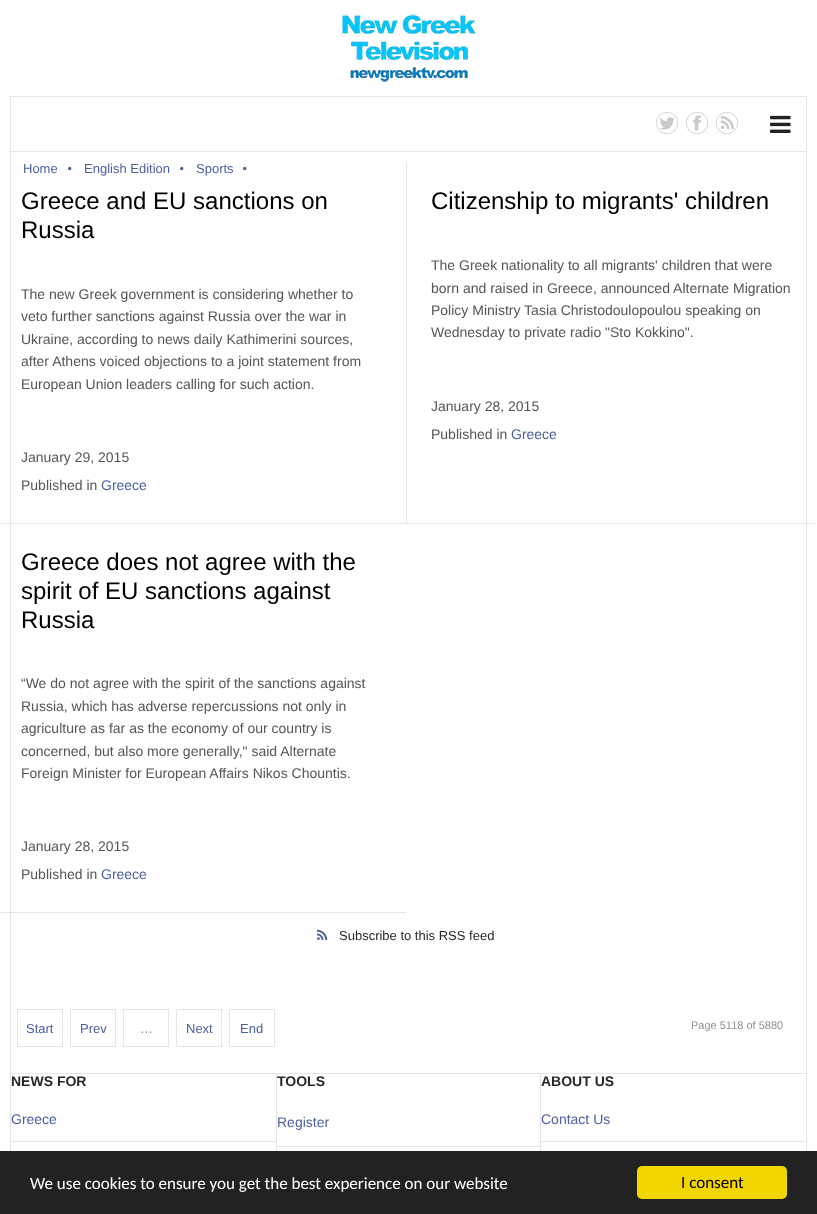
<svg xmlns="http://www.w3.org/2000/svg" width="817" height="1214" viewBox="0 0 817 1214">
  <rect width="100%" height="100%" fill="#ffffff"/>
  <rect x="10" y="151" width="797" height="1" fill="#e5e5e5"/>
  <image x="342" y="14" width="134" height="68" href="img1.png"/>
  <rect x="10" y="96" width="797" height="1" fill="#e5e5e5"/>
  <rect x="806" y="96" width="1" height="55" fill="#e5e5e5"/>
  <rect x="10" y="96" width="1" height="55" fill="#e5e5e5"/>
  <image x="656" y="112" width="22" height="22" href="img2.png"/>
  <image x="686" y="112" width="22" height="22" href="img3.png"/>
  <image x="716" y="112" width="22" height="22" href="img4.png"/>
  <image x="770" y="115" width="21" height="18" href="img5.png"/>
  <rect x="806" y="152" width="1" height="999" fill="#e5e5e5"/>
  <rect x="10" y="152" width="1" height="999" fill="#e5e5e5"/>
  <text x="23" y="173" font-family="Liberation Sans" font-size="13" fill="#4c61a0">Home</text>
  <image x="68" y="166" width="4" height="5" href="img6.png"/>
  <text x="84" y="173" font-family="Liberation Sans" font-size="13" fill="#4c61a0">English Edition</text>
  <image x="180" y="166" width="4" height="5" href="img6.png"/>
  <text x="196" y="173" font-family="Liberation Sans" font-size="13" fill="#4c61a0">Sports</text>
  <image x="243" y="166" width="4" height="5" href="img6.png"/>
  <rect x="0" y="523" width="815" height="1" fill="#e5e5e5"/>
  <text x="21" y="209" font-family="Liberation Sans" font-size="24" fill="#000000">Greece and EU sanctions on</text>
  <text x="21" y="238" font-family="Liberation Sans" font-size="24" fill="#000000">Russia</text>
  <text x="21" y="299" font-family="Liberation Sans" font-size="14" fill="#555555">The new Greek government is considering whether to</text>
  <text x="21" y="321" font-family="Liberation Sans" font-size="14" fill="#555555">veto further sanctions against Russia over the war in</text>
  <text x="21" y="344" font-family="Liberation Sans" font-size="14" fill="#555555">Ukraine, according to news daily Kathimerini sources,</text>
  <text x="21" y="366" font-family="Liberation Sans" font-size="14" fill="#555555">after Athens voiced objections to a joint statement from</text>
  <text x="21" y="389" font-family="Liberation Sans" font-size="14" fill="#555555">European Union leaders calling for such action.</text>
  <text x="21" y="462" font-family="Liberation Sans" font-size="14" fill="#555555">January 29, 2015</text>
  <text x="21" y="490" font-family="Liberation Sans" font-size="14" fill="#555555">Published in</text>
  <text x="101" y="490" font-family="Liberation Sans" font-size="14" fill="#4c61a0">Greece</text>
  <rect x="406" y="163" width="1" height="361" fill="#e5e5e5"/>
  <text x="431" y="209" font-family="Liberation Sans" font-size="24" fill="#000000">Citizenship to migrants' children</text>
  <text x="431" y="270" font-family="Liberation Sans" font-size="14" fill="#555555">The Greek nationality to all migrants' children that were</text>
  <text x="431" y="293" font-family="Liberation Sans" font-size="14" fill="#555555">born and raised in Greece, announced Alternate Migration</text>
  <text x="431" y="315" font-family="Liberation Sans" font-size="14" fill="#555555">Policy Ministry Tasia Christodoulopoulou speaking on</text>
  <text x="431" y="337" font-family="Liberation Sans" font-size="14" fill="#555555">Wednesday to private radio "Sto Kokkino".</text>
  <text x="431" y="411" font-family="Liberation Sans" font-size="14" fill="#555555">January 28, 2015</text>
  <text x="431" y="439" font-family="Liberation Sans" font-size="14" fill="#555555">Published in</text>
  <text x="511" y="439" font-family="Liberation Sans" font-size="14" fill="#4c61a0">Greece</text>
  <rect x="0" y="912" width="406" height="1" fill="#e5e5e5"/>
  <text x="21" y="570" font-family="Liberation Sans" font-size="24" fill="#000000">Greece does not agree with the</text>
  <text x="21" y="599" font-family="Liberation Sans" font-size="24" fill="#000000">spirit of EU sanctions against</text>
  <text x="21" y="628" font-family="Liberation Sans" font-size="24" fill="#000000">Russia</text>
  <text x="21" y="688" font-family="Liberation Sans" font-size="14" fill="#555555">“We do not agree with the spirit of the sanctions against</text>
  <text x="21" y="711" font-family="Liberation Sans" font-size="14" fill="#555555">Russia, which has adverse repercussions not only in</text>
  <text x="21" y="733" font-family="Liberation Sans" font-size="14" fill="#555555">agriculture as far as the economy of our country is</text>
  <text x="21" y="756" font-family="Liberation Sans" font-size="14" fill="#555555">concerned, but also more generally," said Alternate</text>
  <text x="21" y="778" font-family="Liberation Sans" font-size="14" fill="#555555">Foreign Minister for European Affairs Nikos Chountis.</text>
  <text x="21" y="851" font-family="Liberation Sans" font-size="14" fill="#555555">January 28, 2015</text>
  <text x="21" y="879" font-family="Liberation Sans" font-size="14" fill="#555555">Published in</text>
  <text x="101" y="879" font-family="Liberation Sans" font-size="14" fill="#4c61a0">Greece</text>
  <image x="317" y="929" width="11" height="11" href="img7.png"/>
  <text x="339" y="940" font-family="Liberation Sans" font-size="13" fill="#272727">Subscribe to this RSS feed</text>
  <rect x="17.5" y="1009.5" width="45" height="37" fill="none" stroke="#e5e5e5"/>
  <text x="26" y="1033" font-family="Liberation Sans" font-size="13" fill="#4c61a0">Start</text>
  <rect x="70.5" y="1009.5" width="45" height="37" fill="none" stroke="#e5e5e5"/>
  <text x="80" y="1033" font-family="Liberation Sans" font-size="13" fill="#4c61a0">Prev</text>
  <rect x="123.5" y="1009.5" width="45" height="37" fill="none" stroke="#e5e5e5"/>
  <text x="140" y="1033" font-family="Liberation Sans" font-size="13" fill="#909090">…</text>
  <rect x="176.5" y="1009.5" width="45" height="37" fill="none" stroke="#e5e5e5"/>
  <text x="186" y="1033" font-family="Liberation Sans" font-size="13" fill="#4c61a0">Next</text>
  <rect x="229.5" y="1009.5" width="45" height="37" fill="none" stroke="#e5e5e5"/>
  <text x="240" y="1033" font-family="Liberation Sans" font-size="13" fill="#4c61a0">End</text>
  <text x="691" y="1029" font-family="Liberation Sans" font-size="11" fill="#909090">Page 5118 of 5880</text>
  <rect x="11" y="1073" width="795" height="1" fill="#e5e5e5"/>
  <text x="11" y="1086" font-family="Liberation Sans" font-size="14" font-weight="bold" fill="#272727">NEWS FOR</text>
  <rect x="11" y="1141" width="265" height="1" fill="#e5e5e5"/>
  <text x="11" y="1124" font-family="Liberation Sans" font-size="14" fill="#4c61a0">Greece</text>
  <rect x="276" y="1074" width="1" height="77" fill="#e5e5e5"/>
  <text x="277" y="1086" font-family="Liberation Sans" font-size="14" font-weight="bold" fill="#272727">TOOLS</text>
  <rect x="277" y="1146" width="263" height="1" fill="#e5e5e5"/>
  <text x="277" y="1127" font-family="Liberation Sans" font-size="14" fill="#4c61a0">Register</text>
  <rect x="540" y="1074" width="1" height="77" fill="#e5e5e5"/>
  <text x="541" y="1086" font-family="Liberation Sans" font-size="14" font-weight="bold" fill="#272727">ABOUT US</text>
  <rect x="541" y="1141" width="264" height="1" fill="#e5e5e5"/>
  <text x="541" y="1124" font-family="Liberation Sans" font-size="14" fill="#4c61a0">Contact Us</text>
  <rect x="0" y="1151" width="817" height="63" fill="#222222"/>
  <text x="30" y="1189" font-family="Carlito" font-size="17" fill="#ffffff">We use cookies to ensure you get the best experience on our website</text>
  <rect x="637" y="1166" width="150" height="33" rx="5" fill="#f1d600"/>
  <text x="681" y="1188" font-family="Carlito" font-size="17" fill="#000000">I consent</text>
</svg>
